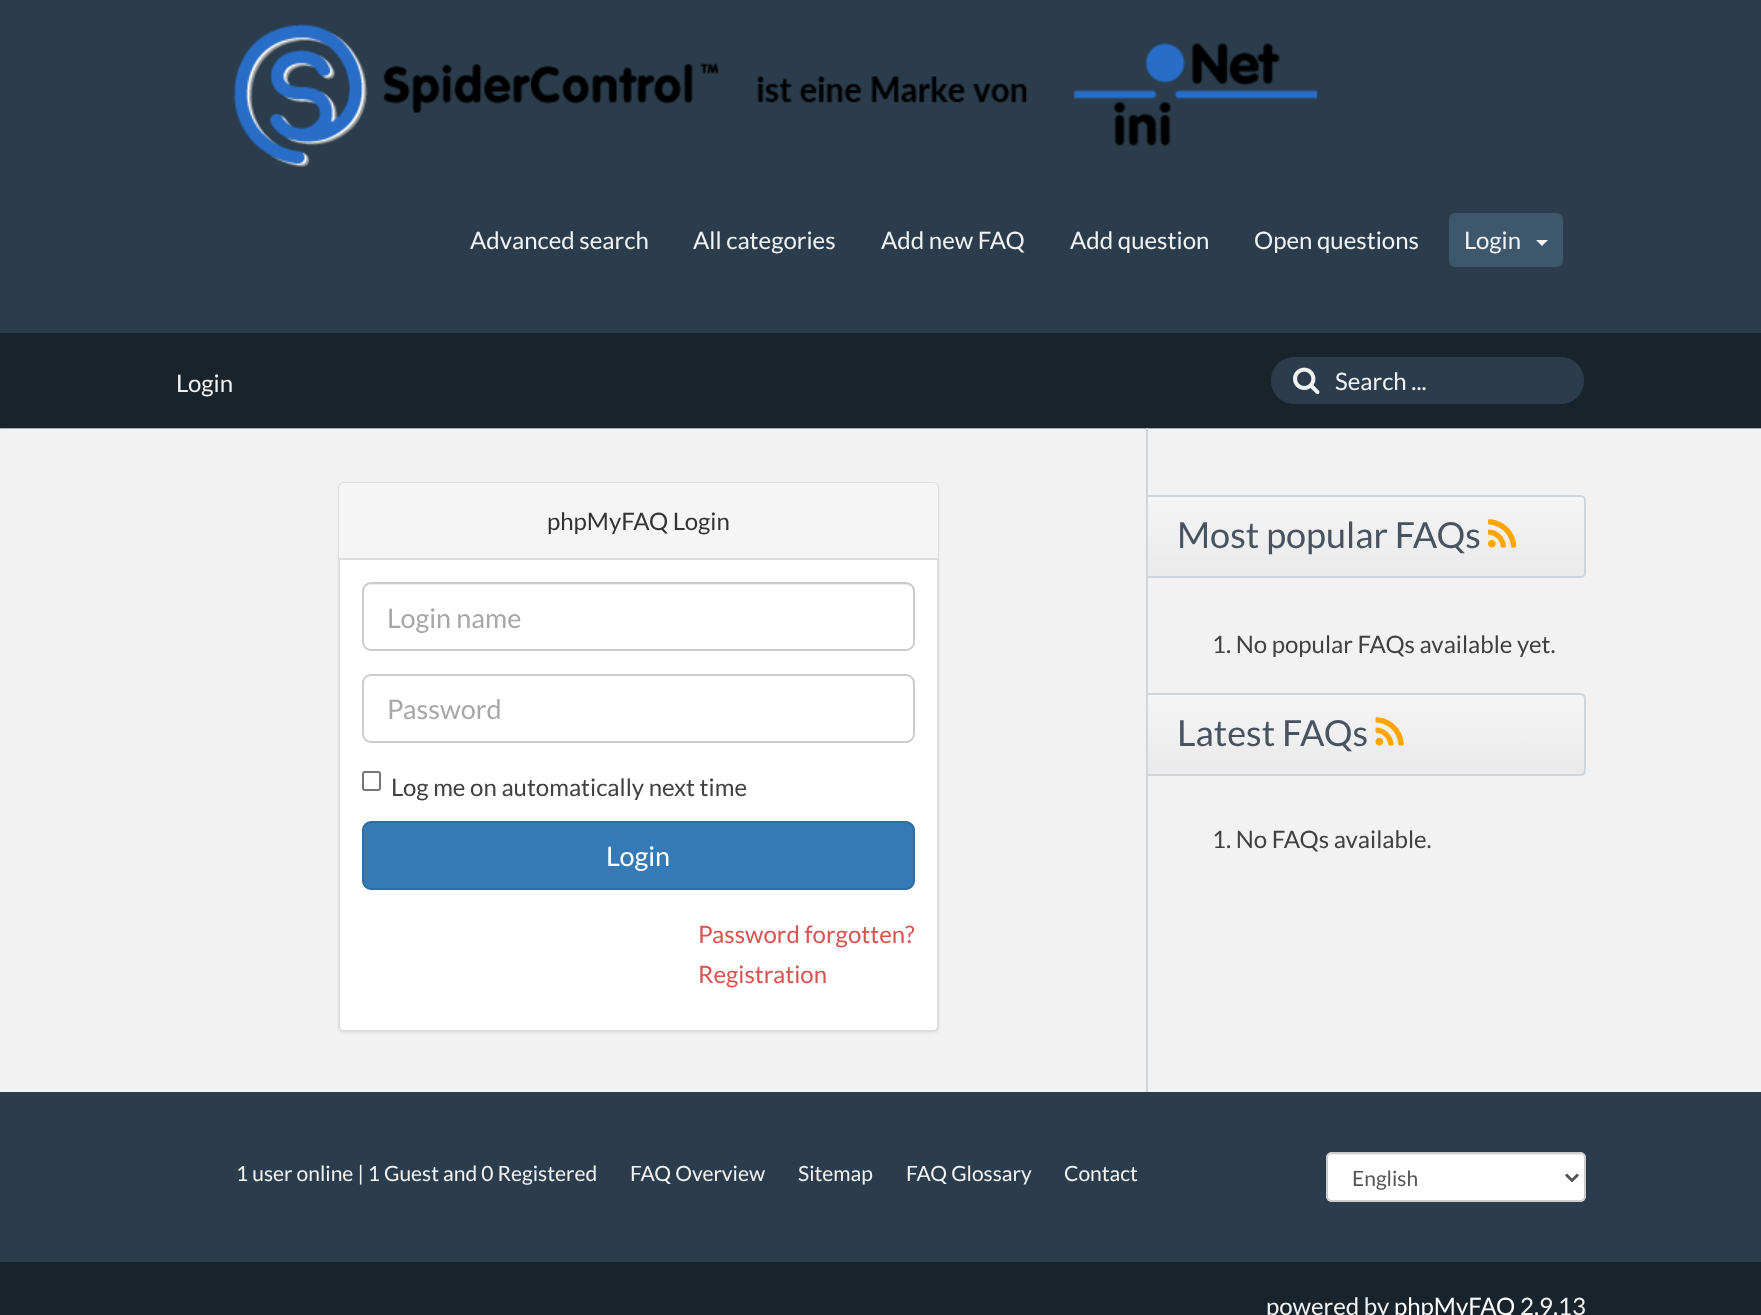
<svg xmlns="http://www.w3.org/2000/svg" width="1761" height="1315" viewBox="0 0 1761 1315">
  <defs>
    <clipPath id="clip1"><rect x="0" y="428" width="1761" height="664"/></clipPath>
    <filter id="blur1" x="-50%" y="-200%" width="200%" height="500%"><feGaussianBlur stdDeviation="1"/></filter>
    <clipPath id="clip2"><path d="M1146 495H1580C1583.5 495 1586 497.5 1586 501V572C1586 575.5 1583.5 578 1580 578H1146Z"/></clipPath>
    <linearGradient id="g1" gradientUnits="userSpaceOnUse" x1="1366" y1="497" x2="1366" y2="576"><stop offset="0" stop-color="#f6f5f5"/><stop offset="1" stop-color="#ebeaea"/></linearGradient>
    <clipPath id="clip3"><path d="M1146 693H1580C1583.5 693 1586 695.5 1586 699V770C1586 773.5 1583.5 776 1580 776H1146Z"/></clipPath>
    <linearGradient id="g2" gradientUnits="userSpaceOnUse" x1="1366" y1="695" x2="1366" y2="774"><stop offset="0" stop-color="#f6f5f5"/><stop offset="1" stop-color="#ebeaea"/></linearGradient>
  </defs>
  <rect width="100%" height="100%" fill="#f2f2f2"/>
  <rect x="0" y="0" width="1761" height="333" fill="#2b3d4c"/>
  <image x="233" y="24" width="1085" height="143" href="img1.png"/>
  <text x="470" y="249" font-family="Lato" font-size="24" fill="#f2f2f2">Advanced search</text>
  <text x="693" y="249" font-family="Lato" font-size="24" fill="#f2f2f2">All categories</text>
  <text x="881" y="249" font-family="Lato" font-size="24" fill="#f2f2f2">Add new FAQ</text>
  <text x="1070" y="249" font-family="Lato" font-size="24" fill="#f2f2f2">Add question</text>
  <text x="1254" y="249" font-family="Lato" font-size="24" fill="#f2f2f2">Open questions</text>
  <rect x="1449" y="213" width="114" height="54" rx="6" fill="#3d576d"/>
  <text x="1464" y="249" font-family="Lato" font-size="24" fill="#f2f2f2">Login</text>
  <path d="M1536 240H1548L1542 246Z" fill="#f2f2f2"/>
  <rect x="0" y="333" width="1761" height="95" fill="#19232b"/>
  <text x="176" y="392" font-family="Lato" font-size="24" fill="#f2f2f2">Login</text>
  <path d="M1294 357H1328V404H1294C1281.5 404 1271 393.5 1271 381V380C1271 367.5 1281.5 357 1294 357Z" fill="#2b3d4c"/>
  <image x="1293" y="367" width="27" height="28" href="img2.png"/>
  <path d="M1326 357H1561C1573.5 357 1584 367.5 1584 380V381C1584 393.5 1573.5 404 1561 404H1326Z" fill="#2b3d4c"/>
  <text x="1335" y="390" font-family="Lato" font-size="24" fill="#f2f2f2">Search ...</text>
  <g clip-path="url(#clip1)">
    <path d="M-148 279H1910V1240H-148ZM2 429H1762C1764 429 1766 430 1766 432V1096C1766 1098 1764 1100 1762 1100H2C0 1100-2 1098-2 1096V432C-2 430 0 429 2 429Z" fill="#ababab" fill-rule="evenodd"/>
  </g>
  <rect x="338" y="483" width="601" height="551" rx="6" fill="#000000" fill-opacity="0.05" filter="url(#blur1)"/>
  <rect x="339" y="483" width="599" height="548" rx="5" fill="#ffffff" stroke="#dddddd" stroke-width="2"/>
  <path d="M344 483H933C936 483 938 485 938 488V560H339V488C339 485 341 483 344 483Z" fill="#f5f5f5"/>
  <rect x="339" y="558" width="599" height="2" fill="#dddddd"/>
  <text x="547" y="530" font-family="Lato" font-size="24" fill="#333333">phpMyFAQ Login</text>
  <path d="M370 585H906C910 585 914 588 914 592C914 588 910 584 906 584H371C367 584 363 588 363 592C363 588 366 585 370 585Z" fill="#ececec"/>
  <rect x="363" y="583" width="551" height="67" rx="8" fill="none" stroke="#cccccc" stroke-width="2"/>
  <text x="387" y="628" font-family="Lato" font-size="27" fill="#a8a7a8">Login name</text>
  <rect x="363" y="675" width="551" height="67" rx="8" fill="none" stroke="#cccccc" stroke-width="2"/>
  <text x="387" y="719" font-family="Lato" font-size="27" fill="#a8a7a8">Password</text>
  <rect x="363" y="772" width="17" height="18" rx="2" fill="none" stroke="#767676" stroke-width="2"/>
  <text x="391" y="796" font-family="Lato" font-size="24" fill="#424142">Log me on automatically next time</text>
  <rect x="363" y="822" width="551" height="67" rx="8" fill="#337ab7" stroke="#2e6da4" stroke-width="2"/>
  <text x="606" y="866" font-family="Lato" font-size="27" fill="#ffffff">Login</text>
  <text x="698" y="943" font-family="Lato" font-size="24" fill="#d9534f">Password forgotten?</text>
  <text x="698" y="983" font-family="Lato" font-size="24" fill="#d9534f">Registration</text>
  <rect x="1146" y="428" width="2" height="664" fill="#ced5db"/>
  <g clip-path="url(#clip2)">
    <rect x="1148" y="497" width="438" height="79" fill="url(#g1)"/>
  </g>
  <path d="M1147 496H1580C1583 496 1585 498 1585 501V572C1585 575 1583 577 1580 577H1147Z" fill="none" stroke="#ced5db" stroke-width="2"/>
  <text x="1177" y="548" font-family="Lato" font-size="36" fill="#48535f">Most popular FAQs</text>
  <image x="1488" y="519" width="29" height="29" href="img3.png"/>
  <text x="1212" y="653" font-family="Lato" font-size="24" fill="#424142">1. No popular FAQs available yet.</text>
  <g clip-path="url(#clip3)">
    <rect x="1148" y="695" width="438" height="79" fill="url(#g2)"/>
  </g>
  <path d="M1147 694H1580C1583 694 1585 696 1585 699V770C1585 773 1583 775 1580 775H1147Z" fill="none" stroke="#ced5db" stroke-width="2"/>
  <text x="1177" y="746" font-family="Lato" font-size="36" fill="#48535f">Latest FAQs</text>
  <image x="1375" y="717" width="29" height="29" href="img4.png"/>
  <text x="1212" y="848" font-family="Lato" font-size="24" fill="#424142">1. No FAQs available.</text>
  <rect x="0" y="1092" width="1761" height="170" fill="#2b3d4c"/>
  <text x="236" y="1181" font-family="Lato" font-size="21" fill="#f2f2f2">1 user online | 1 Guest and 0 Registered</text>
  <text x="630" y="1181" font-family="Lato" font-size="21" fill="#f2f2f2">FAQ Overview</text>
  <text x="798" y="1181" font-family="Lato" font-size="21" fill="#f2f2f2">Sitemap</text>
  <text x="906" y="1181" font-family="Lato" font-size="21" fill="#f2f2f2">FAQ Glossary</text>
  <text x="1064" y="1181" font-family="Lato" font-size="21" fill="#f2f2f2">Contact</text>
  <rect x="1326" y="1152" width="260" height="50" rx="6" fill="#ffffff"/>
  <path d="M1332 1155H1580C1582 1155 1584 1157 1584 1160C1584 1157 1582 1154 1579 1154H1333C1330 1154 1328 1157 1328 1160C1328 1157 1330 1155 1332 1155Z" fill="#ececec"/>
  <rect x="1327" y="1153" width="258" height="48" rx="5" fill="none" stroke="#cccccc" stroke-width="2"/>
  <path d="M1566 1174.5L1572 1180.5L1578 1174.5" fill="none" stroke="#555555" stroke-width="3"/>
  <text x="1352" y="1186" font-family="Lato" font-size="21" fill="#555555">English</text>
  <rect x="0" y="1262" width="1761" height="53" fill="#19232b"/>
  <text x="1266" y="1315" font-family="Lato" font-size="24" fill="#f2f2f2">powered by</text>
  <text x="1394" y="1315" font-family="Lato" font-size="24" fill="#ffffff">phpMyFAQ</text>
  <text x="1520" y="1315" font-family="Lato" font-size="24" fill="#f2f2f2">2.9.13</text>
</svg>
